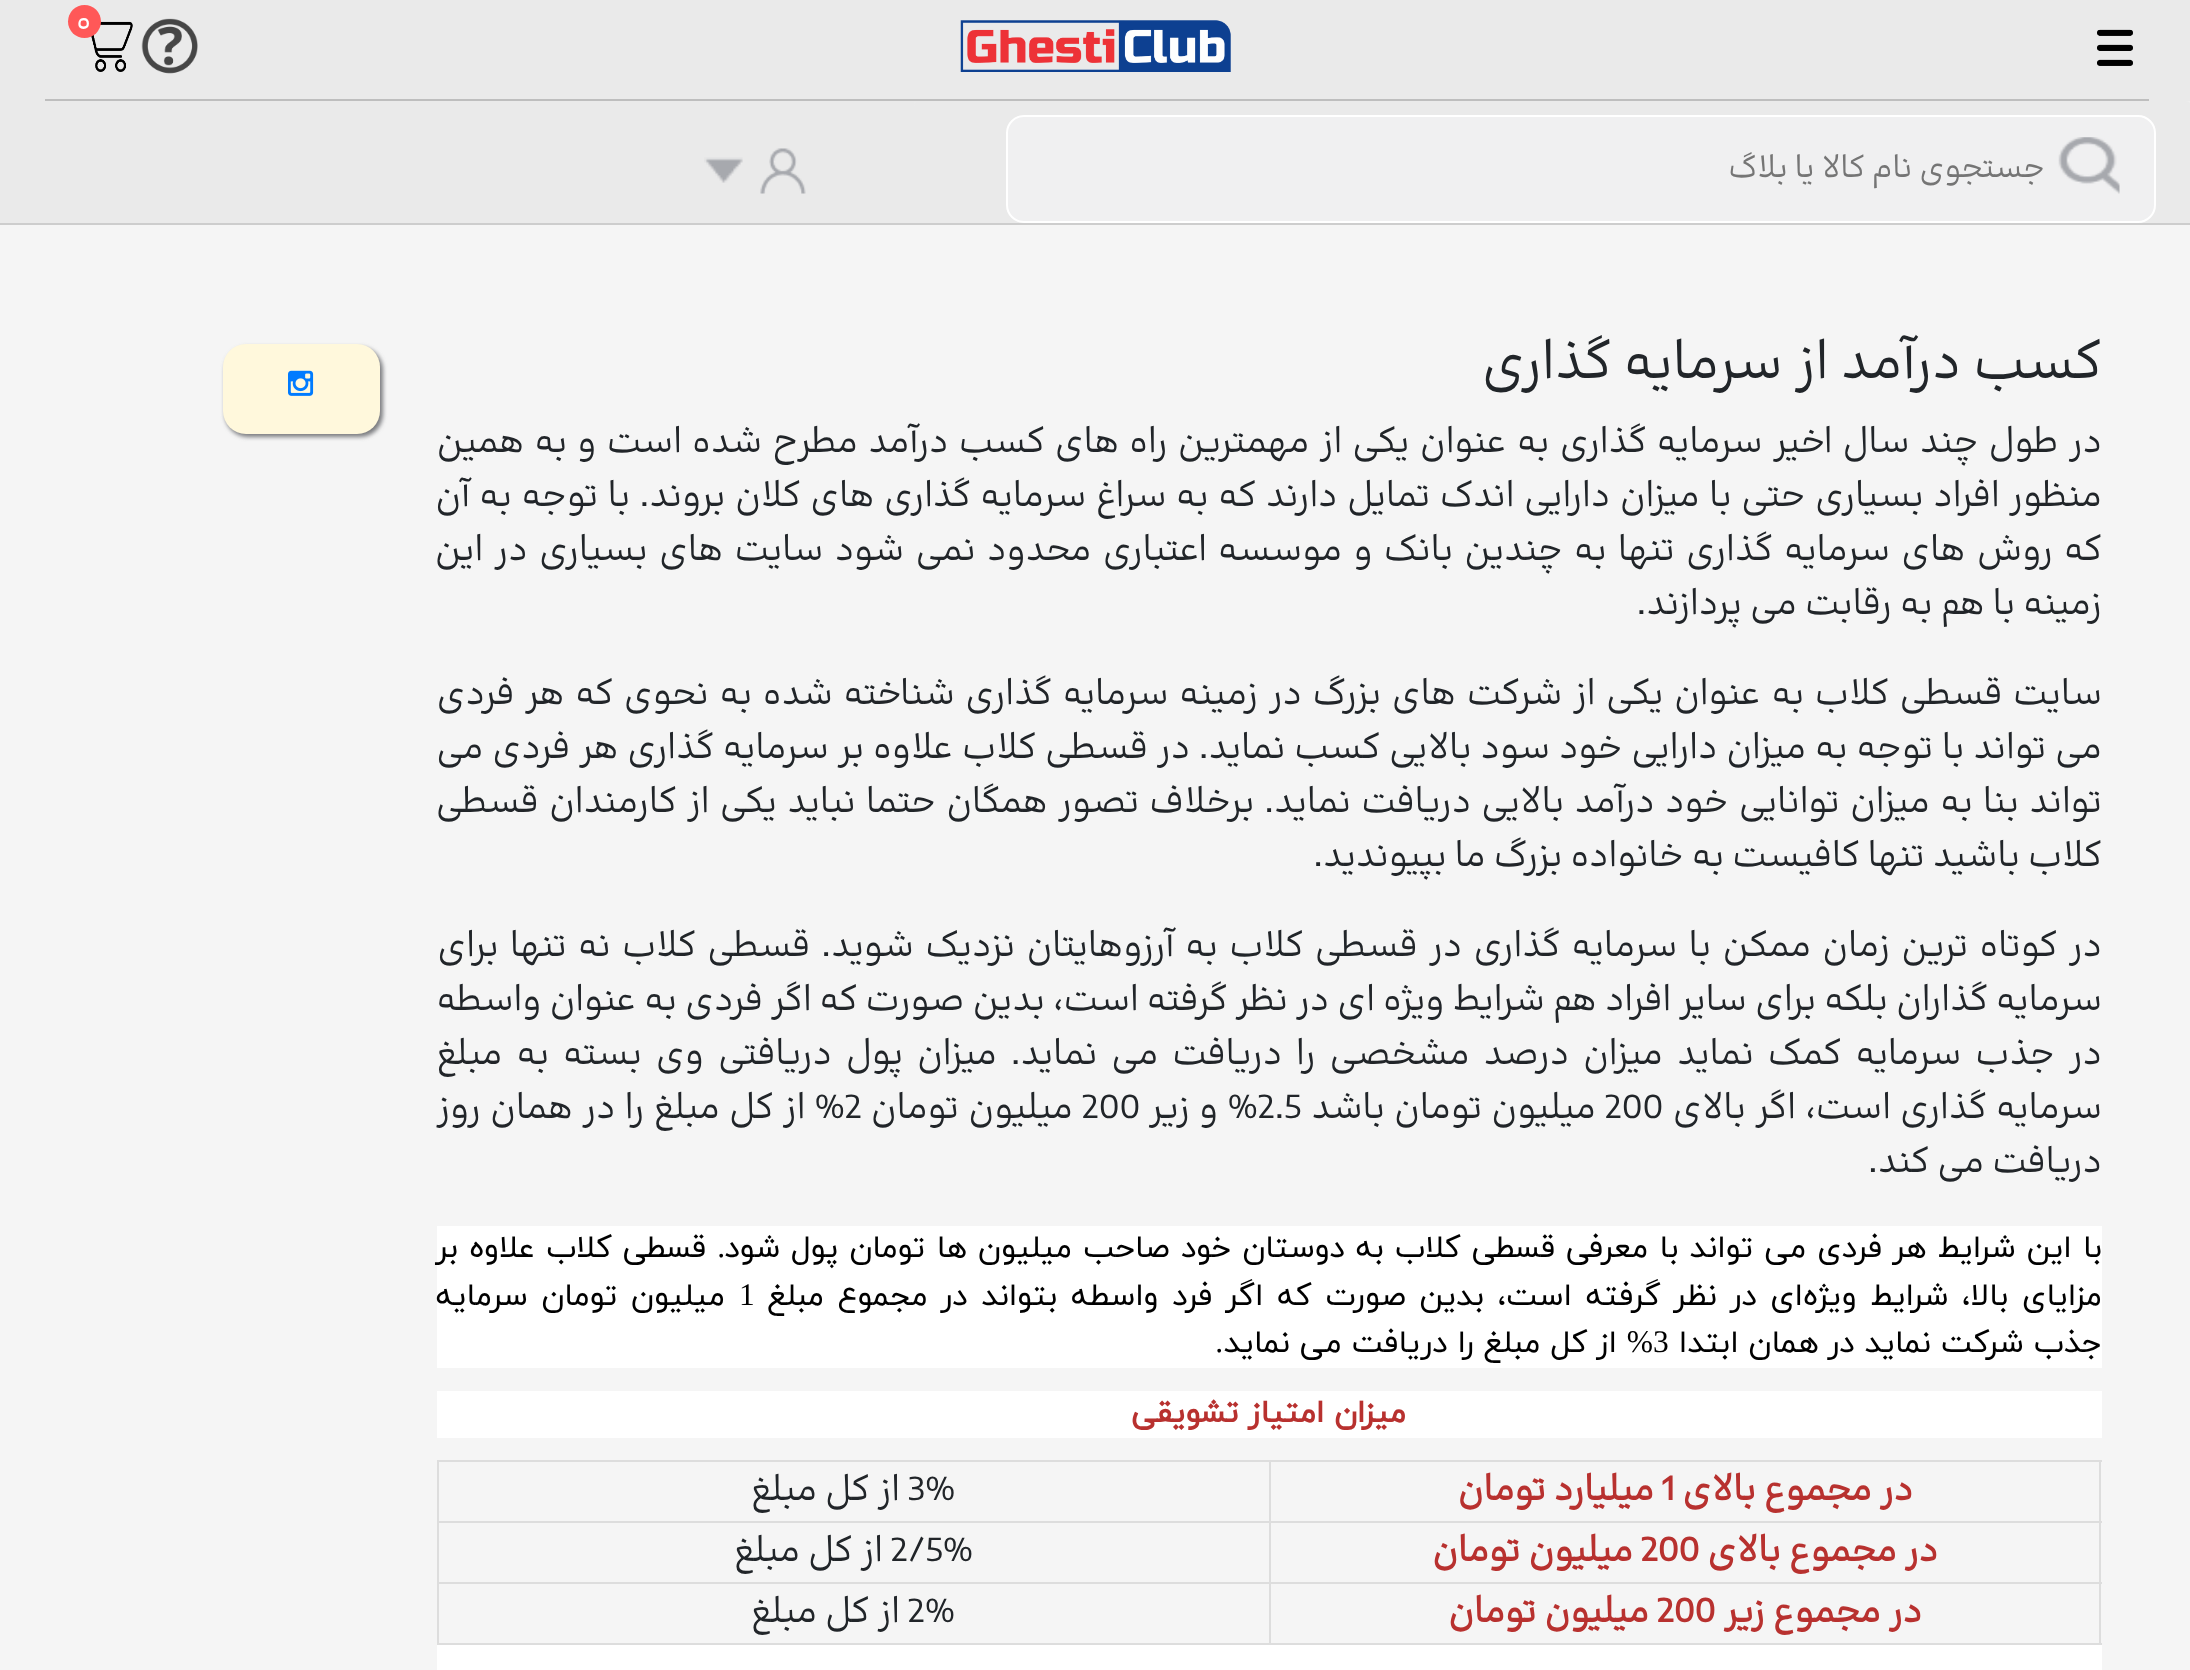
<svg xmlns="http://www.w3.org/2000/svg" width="2190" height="1670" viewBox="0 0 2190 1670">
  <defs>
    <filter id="blur1" x="-50%" y="-200%" width="200%" height="500%"><feGaussianBlur stdDeviation="16"/></filter>
    <filter id="blur2" x="-50%" y="-200%" width="200%" height="500%"><feGaussianBlur stdDeviation="2"/></filter>
  </defs>
  <rect width="100%" height="100%" fill="#f5f5f5"/>
  <rect x="0" y="9" width="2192" height="101" fill="#000000" fill-opacity="0.06" filter="url(#blur1)"/>
  <rect x="0" y="0" width="2190" height="101" fill="#eaeaea"/>
  <rect x="45" y="99" width="2104" height="2" fill="#bebebe"/>
  <image x="2097" y="29" width="36" height="37" href="img1.png"/>
  <image x="960" y="20" width="271" height="52" href="img2.png"/>
  <image x="141" y="18" width="57" height="56" href="img3.png"/>
  <image x="91" y="21" width="42" height="51" href="img4.png"/>
  <circle cx="84.5" cy="21.5" r="16.5" fill="#ff5858"/>
  <text x="76" y="31" font-family="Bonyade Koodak" font-size="31.5" letter-spacing="-1" fill="#ffffff">۰</text>
  <path d="M921 101H2185C2189 101 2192 104 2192 108V225H914V108C914 104 917 101 921 101Z" fill="#eaeaea"/>
  <rect x="0" y="223" width="2190" height="2" fill="#cdcdcd"/>
  <rect x="1007" y="116" width="1148" height="106" rx="17" fill="#f0f0f1" stroke="#ffffff" stroke-width="2"/>
  <image x="2058" y="137" width="62" height="57" href="img5.png"/>
  <text x="2045" y="177" font-family="Bonyade Koodak" font-size="31.5" direction="rtl" fill="#757575">جستجوی نام کالا یا بلاگ</text>
  <rect x="0" y="101" width="914" height="122" fill="#eaeaea"/>
  <image x="760" y="148" width="46" height="46" href="img6.png"/>
  <image x="704" y="157" width="39" height="26" href="img7.png"/>
  <text x="2102" y="378" font-family="Bonyade Koodak" font-size="54" direction="rtl" fill="#212529">کسب درآمد از سرمایه گذاری</text>
  <text x="2102" y="452" word-spacing="2.2" font-family="Bonyade Koodak" font-size="36" direction="rtl" fill="#212529">در طول چند سال اخیر سرمایه گذاری به عنوان یکی از مهمترین راه های کسب درآمد مطرح شده است و به همین</text>
  <text x="2102" y="506" word-spacing="1.5" font-family="Bonyade Koodak" font-size="36" direction="rtl" fill="#212529">منظور افراد بسیاری حتی با میزان دارایی اندک تمایل دارند که به سراغ سرمایه گذاری های کلان بروند. با توجه به آن</text>
  <text x="2102" y="560" word-spacing="3.25" font-family="Bonyade Koodak" font-size="36" direction="rtl" fill="#212529">که روش های سرمایه گذاری تنها به چندین بانک و موسسه اعتباری محدود نمی شود سایت های بسیاری در این</text>
  <text x="2102" y="614" font-family="Bonyade Koodak" font-size="36" direction="rtl" fill="#212529">زمینه با هم به رقابت می پردازند.</text>
  <text x="2102" y="704" word-spacing="2.6" font-family="Bonyade Koodak" font-size="36" direction="rtl" fill="#212529">سایت قسطی کلاب به عنوان یکی از شرکت های بزرگ در زمینه سرمایه گذاری شناخته شده به نحوی که هر فردی</text>
  <text x="2102" y="758" word-spacing="0.8" font-family="Bonyade Koodak" font-size="36" direction="rtl" fill="#212529">می تواند با توجه به میزان دارایی خود سود بالایی کسب نماید. در قسطی کلاب علاوه بر سرمایه گذاری هر فردی می</text>
  <text x="2102" y="812" word-spacing="2.2" font-family="Bonyade Koodak" font-size="36" direction="rtl" fill="#212529">تواند بنا به میزان توانایی خود درآمد بالایی دریافت نماید. برخلاف تصور همگان حتما نباید یکی از کارمندان قسطی</text>
  <text x="2102" y="866" font-family="Bonyade Koodak" font-size="36" direction="rtl" fill="#212529">کلاب باشید تنها کافیست به خانواده بزرگ ما بپیوندید.</text>
  <text x="2102" y="956" word-spacing="3.25" font-family="Bonyade Koodak" font-size="36" direction="rtl" fill="#212529">در کوتاه ترین زمان ممکن با سرمایه گذاری در قسطی کلاب به آرزوهایتان نزدیک شوید. قسطی کلاب نه تنها برای</text>
  <text x="2102" y="1010" font-family="Bonyade Koodak" font-size="36" direction="rtl" fill="#212529">سرمایه گذاران بلکه برای سایر افراد هم شرایط ویژه ای در نظر گرفته است، بدین صورت که اگر فردی به عنوان واسطه</text>
  <text x="2102" y="1064" word-spacing="5.9" font-family="Bonyade Koodak" font-size="36" direction="rtl" fill="#212529">در جذب سرمایه کمک نماید میزان درصد مشخصی را دریافت می نماید. میزان پول دریافتی وی بسته به مبلغ</text>
  <text x="2102" y="1118" word-spacing="1.25" font-family="Bonyade Koodak" font-size="36" direction="rtl" fill="#212529">سرمایه گذاری است، اگر بالای</text>
  <text x="1605" y="1118" font-family="Bonyade Koodak" font-size="36" fill="#212529">200</text>
  <text x="1596" y="1118" word-spacing="1" font-family="Bonyade Koodak" font-size="36" direction="rtl" fill="#212529">میلیون تومان باشد</text>
  <text x="1258" y="1118" font-family="Bonyade Koodak" font-size="36" fill="#212529">2.5</text>
  <text x="1258" y="1118" word-spacing="1.25" font-family="Bonyade Koodak" font-size="36" direction="rtl" fill="#212529">% و زیر</text>
  <text x="1082" y="1118" font-family="Bonyade Koodak" font-size="36" fill="#212529">200</text>
  <text x="1073" y="1118" word-spacing="1.25" font-family="Bonyade Koodak" font-size="36" direction="rtl" fill="#212529">میلیون تومان</text>
  <text x="845" y="1118" font-family="Bonyade Koodak" font-size="36" fill="#212529">2</text>
  <text x="845" y="1118" word-spacing="1.25" font-family="Bonyade Koodak" font-size="36" direction="rtl" fill="#212529">% از کل مبلغ را در همان روز</text>
  <text x="2102" y="1172" font-family="Bonyade Koodak" font-size="36" direction="rtl" fill="#212529">دریافت می کند.</text>
  <rect x="437" y="1226" width="1665" height="142" fill="#ffffff"/>
  <text x="2102" y="1257" word-spacing="1.1" font-family="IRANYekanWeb" font-size="31.5" direction="rtl" fill="#000000">با این شرایط هر فردی می تواند با معرفی قسطی کلاب به دوستان خود صاحب میلیون ها تومان پول شود</text>
  <text x="725" y="1257" font-family="Liberation Serif" font-size="31.5" direction="rtl" fill="#000000">.</text>
  <text x="706" y="1257" word-spacing="1.1" font-family="IRANYekanWeb" font-size="31.5" direction="rtl" fill="#000000">قسطی کلاب علاوه بر</text>
  <text x="2102" y="1305" word-spacing="3.75" font-family="IRANYekanWeb" font-size="31.5" direction="rtl" fill="#000000">مزایای بالا، شرایط ویژه‌ای در نظر گرفته است، بدین صورت که اگر فرد واسطه بتواند در مجموع مبلغ</text>
  <text x="739" y="1305" font-family="Liberation Serif" font-size="31.5" fill="#000000">1</text>
  <text x="725" y="1305" word-spacing="3.75" font-family="IRANYekanWeb" font-size="31.5" direction="rtl" fill="#000000">میلیون تومان سرمایه</text>
  <text x="2102" y="1352" font-family="IRANYekanWeb" font-size="31.5" direction="rtl" fill="#000000">جذب شرکت نماید در همان ابتدا</text>
  <text x="1653" y="1352" font-family="Liberation Serif" font-size="31.5" fill="#000000">3</text>
  <text x="1653" y="1352" font-family="Liberation Serif" font-size="31.5" direction="rtl" fill="#000000">%</text>
  <text x="1617" y="1352" font-family="IRANYekanWeb" font-size="31.5" direction="rtl" fill="#000000">از کل مبلغ را دریافت می نماید</text>
  <text x="1223" y="1352" font-family="Liberation Serif" font-size="31.5" direction="rtl" fill="#000000">.</text>
  <rect x="437" y="1391" width="1665" height="47" fill="#ffffff"/>
  <text x="1406" y="1422" font-family="IRANYekanWeb" font-size="31.5" font-weight="bold" direction="rtl" fill="#b8312f">میزان امتیاز تشویقی</text>
  <rect x="437" y="1460" width="834" height="2" fill="#dddddd"/>
  <rect x="437" y="1521" width="834" height="2" fill="#dddddd"/>
  <rect x="437" y="1582" width="834" height="2" fill="#dddddd"/>
  <rect x="1269" y="1582" width="2" height="63" fill="#dddddd"/>
  <rect x="1269" y="1582" width="833" height="2" fill="#dddddd"/>
  <rect x="1269" y="1521" width="2" height="63" fill="#dddddd"/>
  <rect x="1269" y="1521" width="833" height="2" fill="#dddddd"/>
  <rect x="1269" y="1460" width="2" height="63" fill="#dddddd"/>
  <rect x="1269" y="1460" width="833" height="2" fill="#dddddd"/>
  <rect x="2099" y="1582" width="2" height="63" fill="#dddddd"/>
  <rect x="2099" y="1521" width="2" height="63" fill="#dddddd"/>
  <rect x="2099" y="1460" width="2" height="63" fill="#dddddd"/>
  <text x="1913" y="1500" font-family="Bonyade Koodak" font-size="36" font-weight="bold" direction="rtl" fill="#b8312f">در مجموع بالای</text>
  <text x="1662" y="1500" font-family="Bonyade Koodak" font-size="36" font-weight="bold" fill="#b8312f">1</text>
  <text x="1654" y="1500" font-family="Bonyade Koodak" font-size="36" font-weight="bold" direction="rtl" fill="#b8312f">میلیارد تومان</text>
  <rect x="437" y="1643" width="834" height="2" fill="#dddddd"/>
  <rect x="437" y="1582" width="2" height="63" fill="#dddddd"/>
  <rect x="437" y="1521" width="2" height="63" fill="#dddddd"/>
  <rect x="437" y="1460" width="2" height="63" fill="#dddddd"/>
  <text x="908" y="1500" font-family="Bonyade Koodak" font-size="36" fill="#212529">3%</text>
  <text x="900" y="1500" font-family="Bonyade Koodak" font-size="36" direction="rtl" fill="#212529">از کل مبلغ</text>
  <text x="1938" y="1561" font-family="Bonyade Koodak" font-size="36" font-weight="bold" direction="rtl" fill="#b8312f">در مجموع بالای</text>
  <text x="1641" y="1561" font-family="Bonyade Koodak" font-size="36" font-weight="bold" fill="#b8312f">200</text>
  <text x="1633" y="1561" font-family="Bonyade Koodak" font-size="36" font-weight="bold" direction="rtl" fill="#b8312f">میلیون تومان</text>
  <text x="891" y="1561" font-family="Bonyade Koodak" font-size="36" fill="#212529">2/5%</text>
  <text x="883" y="1561" font-family="Bonyade Koodak" font-size="36" direction="rtl" fill="#212529">از کل مبلغ</text>
  <rect x="1269" y="1643" width="833" height="2" fill="#dddddd"/>
  <text x="1922" y="1622" font-family="Bonyade Koodak" font-size="36" font-weight="bold" direction="rtl" fill="#b8312f">در مجموع زیر</text>
  <text x="1657" y="1622" font-family="Bonyade Koodak" font-size="36" font-weight="bold" fill="#b8312f">200</text>
  <text x="1649" y="1622" font-family="Bonyade Koodak" font-size="36" font-weight="bold" direction="rtl" fill="#b8312f">میلیون تومان</text>
  <text x="908" y="1622" font-family="Bonyade Koodak" font-size="36" fill="#212529">2%</text>
  <text x="900" y="1622" font-family="Bonyade Koodak" font-size="36" direction="rtl" fill="#212529">از کل مبلغ</text>
  <rect x="437" y="1645" width="1665" height="25" fill="#ffffff"/>
  <rect x="225" y="347" width="158" height="90" rx="23" fill="#7b7d80" filter="url(#blur2)"/>
  <rect x="223" y="344" width="157" height="90" rx="23" fill="#fff8dc"/>
  <image x="288" y="370" width="26" height="26" href="img8.png"/>
</svg>
